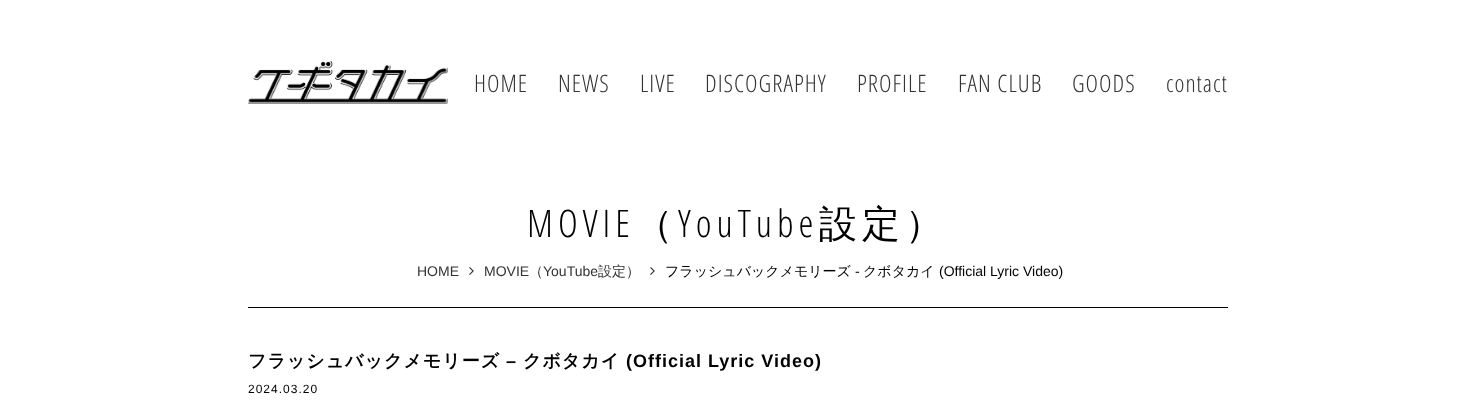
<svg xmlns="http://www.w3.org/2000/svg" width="1475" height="417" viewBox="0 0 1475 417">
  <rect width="100%" height="100%" fill="#ffffff"/>
  <image x="248" y="61" width="200" height="43" href="img1.png"/>
  <text x="474" y="92" font-family="Open Sans Condensed" font-size="24" font-weight="300" letter-spacing="1" fill="#333333">HOME</text>
  <text x="558" y="92" font-family="Open Sans Condensed" font-size="24" font-weight="300" letter-spacing="1" fill="#333333">NEWS</text>
  <text x="640" y="92" font-family="Open Sans Condensed" font-size="24" font-weight="300" letter-spacing="1" fill="#333333">LIVE</text>
  <text x="705" y="92" font-family="Open Sans Condensed" font-size="24" font-weight="300" letter-spacing="1" fill="#333333">DISCOGRAPHY</text>
  <text x="857" y="92" font-family="Open Sans Condensed" font-size="24" font-weight="300" letter-spacing="1" fill="#333333">PROFILE</text>
  <text x="958" y="92" font-family="Open Sans Condensed" font-size="24" font-weight="300" letter-spacing="1" fill="#333333">FAN CLUB</text>
  <text x="1072" y="92" font-family="Open Sans Condensed" font-size="24" font-weight="300" letter-spacing="1" fill="#333333">GOODS</text>
  <text x="1166" y="92" font-family="Open Sans Condensed" font-size="24" font-weight="300" letter-spacing="1" fill="#333333">contact</text>
  <rect x="248" y="307" width="980" height="1" fill="#000000"/>
  <text x="527" y="237" font-family="Open Sans Condensed" font-size="38" font-weight="300" letter-spacing="5" fill="#000000">MOVIE</text>
  <text x="635" y="237" font-family="WenQuanYi Zen Hei" font-size="38" font-weight="500" letter-spacing="5" fill="#000000">（</text>
  <text x="678" y="237" font-family="Open Sans Condensed" font-size="38" font-weight="300" letter-spacing="5" fill="#000000">YouTube</text>
  <text x="819" y="237" font-family="WenQuanYi Zen Hei" font-size="38" font-weight="500" letter-spacing="5" fill="#000000">設定）</text>
  <text x="417" y="276" font-family="Liberation Sans" font-size="14" fill="#333333">HOME</text>
  <image x="469" y="267" width="5" height="8" href="img2.png"/>
  <text x="484" y="276" font-family="Liberation Sans" font-size="14" fill="#333333">MOVIE</text>
  <text x="529" y="276" font-family="WenQuanYi Zen Hei" font-size="14" font-weight="500" fill="#333333">（</text>
  <text x="543" y="276" font-family="Liberation Sans" font-size="14" fill="#333333">YouTube</text>
  <text x="598" y="276" font-family="WenQuanYi Zen Hei" font-size="14" font-weight="500" fill="#333333">設定）</text>
  <image x="650" y="267" width="5" height="8" href="img2.png"/>
  <text x="665" y="276" font-family="WenQuanYi Zen Hei" font-size="14" font-weight="500" fill="#000000">フラッシュバックメモリーズ</text>
  <text x="855" y="276" font-family="Liberation Sans" font-size="14" fill="#000000">-</text>
  <text x="863" y="276" font-family="WenQuanYi Zen Hei" font-size="14" font-weight="500" fill="#000000">クボタカイ</text>
  <text x="939" y="276" font-family="Liberation Sans" font-size="14" fill="#000000">(Official Lyric Video)</text>
  <text x="248" y="367" font-family="WenQuanYi Zen Hei" font-size="18" font-weight="bold" letter-spacing="1" fill="#000000">フラッシュバックメモリーズ</text>
  <text x="506" y="367" font-family="Liberation Sans" font-size="18" font-weight="bold" letter-spacing="1" fill="#000000">–</text>
  <text x="523" y="367" font-family="WenQuanYi Zen Hei" font-size="18" font-weight="bold" letter-spacing="1" fill="#000000">クボタカイ</text>
  <text x="626" y="367" font-family="Liberation Sans" font-size="18" font-weight="bold" letter-spacing="1" fill="#000000">(Official Lyric Video)</text>
  <text x="248" y="393" font-family="Liberation Sans" font-size="12" letter-spacing="1" fill="#000000">2024.03.20</text>
</svg>
